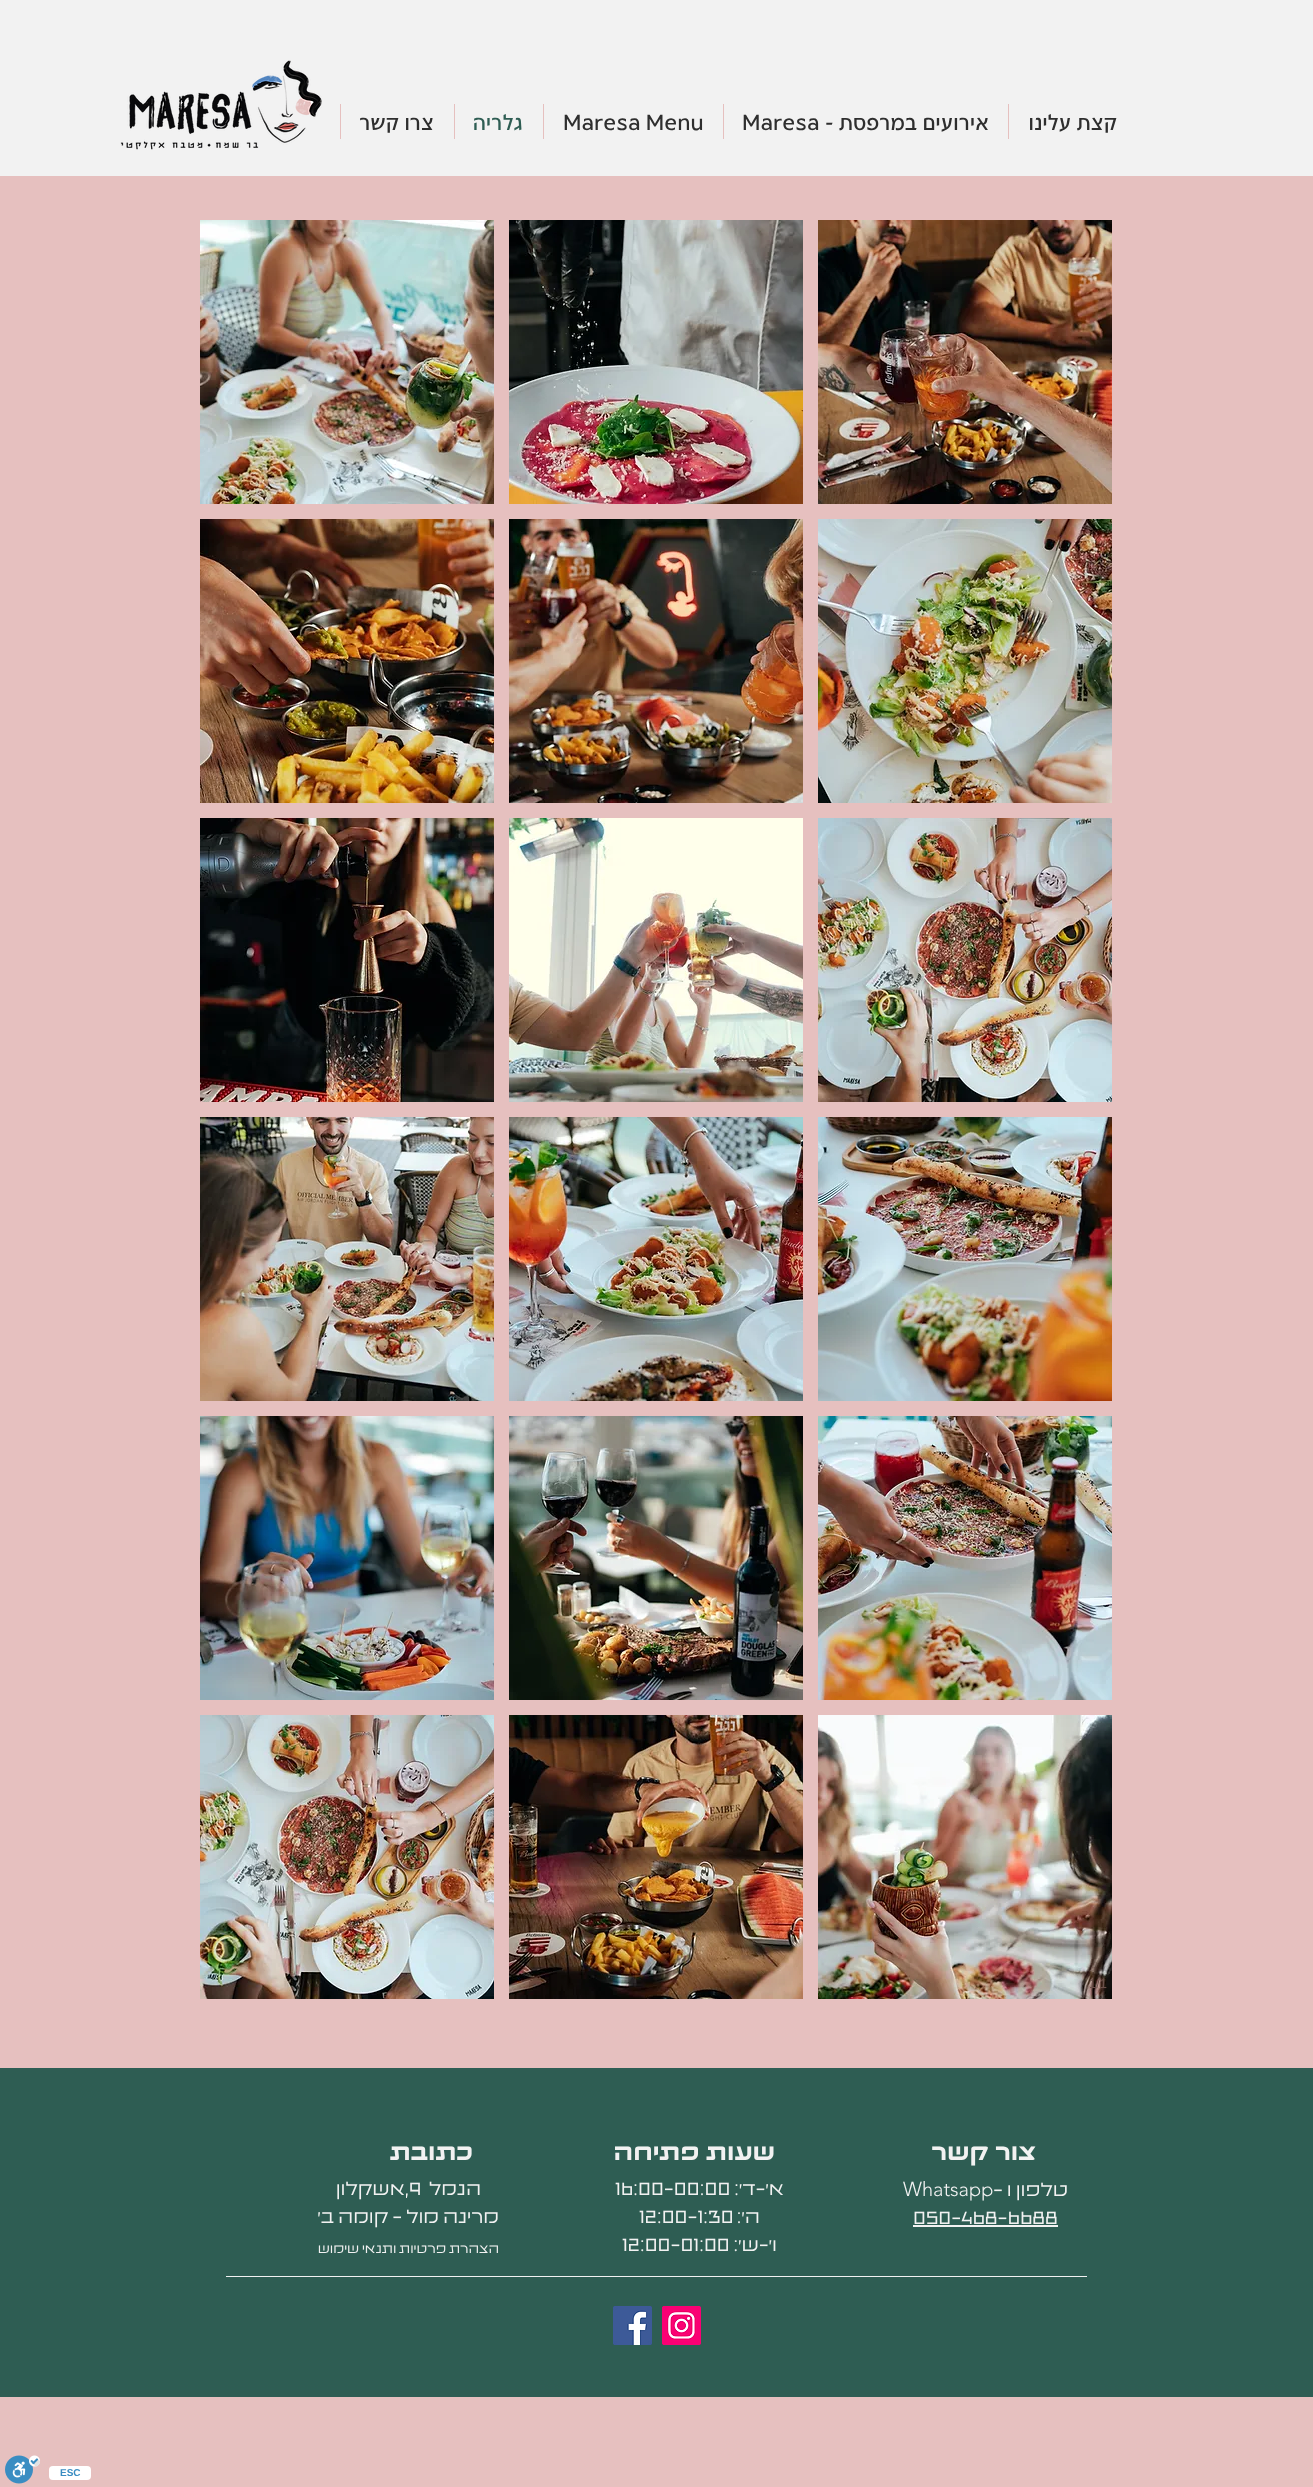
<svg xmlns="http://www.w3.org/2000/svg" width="1313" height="2487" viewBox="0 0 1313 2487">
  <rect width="100%" height="100%" fill="#e6c0bf"/>
  <rect x="0" y="0" width="1313" height="176" fill="#f2f2f2"/>
  <rect x="1008" y="104" width="1" height="35" fill="#e6c0bf"/>
  <text x="1117" y="130" font-family="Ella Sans" font-size="21" direction="rtl" fill="#2e2e2e">קצת עלינו</text>
  <rect x="723" y="104" width="1" height="35" fill="#e6c0bf"/>
  <text x="989" y="130" font-family="Ella Sans" font-size="21" direction="rtl" fill="#2e2e2e">אירועים במרפסת -</text>
  <text x="742" y="130" font-family="Ella Sans" font-size="21" fill="#2e2e2e">Maresa</text>
  <rect x="543" y="104" width="1" height="35" fill="#e6c0bf"/>
  <text x="563" y="130" font-family="Ella Sans" font-size="21" fill="#2e2e2e">Maresa Menu</text>
  <rect x="454" y="104" width="1" height="35" fill="#e6c0bf"/>
  <text x="523" y="130" font-family="Ella Sans" font-size="21" direction="rtl" fill="#2e5d53">גלריה</text>
  <rect x="340" y="104" width="1" height="35" fill="#e6c0bf"/>
  <text x="434" y="130" font-family="Ella Sans" font-size="21" direction="rtl" fill="#2e2e2e">צרו קשר</text>
  <image x="120" y="60" width="202" height="90" href="img1.png"/>
  <image x="818" y="220" width="294" height="284" href="img2.png"/>
  <image x="509" y="220" width="294" height="284" href="img3.png"/>
  <image x="200" y="220" width="294" height="284" href="img4.png"/>
  <image x="818" y="519" width="294" height="284" href="img5.png"/>
  <image x="509" y="519" width="294" height="284" href="img6.png"/>
  <image x="200" y="519" width="294" height="284" href="img7.png"/>
  <image x="818" y="818" width="294" height="284" href="img8.png"/>
  <image x="509" y="818" width="294" height="284" href="img9.png"/>
  <image x="200" y="818" width="294" height="284" href="img10.png"/>
  <image x="818" y="1117" width="294" height="284" href="img11.png"/>
  <image x="509" y="1117" width="294" height="284" href="img12.png"/>
  <image x="200" y="1117" width="294" height="284" href="img13.png"/>
  <image x="818" y="1416" width="294" height="284" href="img14.png"/>
  <image x="509" y="1416" width="294" height="284" href="img15.png"/>
  <image x="200" y="1416" width="294" height="284" href="img16.png"/>
  <image x="818" y="1715" width="294" height="284" href="img17.png"/>
  <image x="509" y="1715" width="294" height="284" href="img18.png"/>
  <image x="200" y="1715" width="294" height="284" href="img19.png"/>
  <text x="1089" y="1988" font-family="Liberation Sans" font-size="13" fill="#6a5049">1/1</text>
  <rect x="0" y="2068" width="1313" height="329" fill="#2e5d53"/>
  <text x="1036" y="2160" font-family="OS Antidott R" font-size="25" font-weight="600" direction="rtl" fill="#f2f2f2">צור קשר</text>
  <text x="775" y="2160" font-family="OS Antidott R" font-size="25" font-weight="600" direction="rtl" fill="#f2f2f2">שעות פתיחה</text>
  <text x="473" y="2160" font-family="OS Antidott R" font-size="25" font-weight="600" direction="rtl" fill="#f2f2f2">כתובת</text>
  <text x="1068" y="2196" font-family="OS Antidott" font-size="20" font-weight="300" direction="rtl" fill="#f2f2f2">טלפון ו</text>
  <text x="993" y="2196" font-family="OS Antidott" font-size="20" font-weight="300" fill="#f2f2f2">-</text>
  <text x="903" y="2196" font-family="'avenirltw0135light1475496'" font-size="20" font-weight="300" fill="#f2f2f2">Whatsapp</text>
  <text x="913" y="2224" font-family="OS Antidott" font-size="20" font-weight="300" fill="#f2f2f2">050-468-6688</text>
  <rect x="913" y="2225" width="145" height="2" fill="#f2f2f2"/>
  <text x="784" y="2195" font-family="OS Antidott" font-size="20" font-weight="300" direction="rtl" fill="#f2f2f2">א׳-ד׳:</text>
  <text x="615" y="2195" font-family="OS Antidott" font-size="20" font-weight="300" fill="#f2f2f2">16:00-00:00</text>
  <text x="760" y="2223" font-family="OS Antidott" font-size="20" font-weight="300" direction="rtl" fill="#f2f2f2">ה׳:</text>
  <text x="639" y="2223" font-family="OS Antidott" font-size="20" font-weight="300" fill="#f2f2f2">12:00-1:30</text>
  <text x="777" y="2251" font-family="OS Antidott" font-size="20" font-weight="300" direction="rtl" fill="#f2f2f2">ו׳-ש׳:</text>
  <text x="622" y="2251" font-family="OS Antidott" font-size="20" font-weight="300" fill="#f2f2f2">12:00-01:00</text>
  <text x="481" y="2195" font-family="OS Antidott" font-size="20" font-weight="300" direction="rtl" fill="#f2f2f2">הנמל</text>
  <text x="409" y="2195" font-family="OS Antidott" font-size="20" font-weight="300" fill="#f2f2f2">9</text>
  <text x="409" y="2195" font-family="OS Antidott" font-size="20" font-weight="300" direction="rtl" fill="#f2f2f2">,אשקלון</text>
  <text x="499" y="2223" font-family="OS Antidott" font-size="20" font-weight="300" direction="rtl" fill="#f2f2f2">מרינה מול - קומה ב׳</text>
  <text x="499" y="2253" font-family="OS Antidott" font-size="14" font-weight="300" direction="rtl" fill="#f2f2f2">הצהרת פרטיות ותנאי שימוש</text>
  <rect x="226" y="2276" width="861" height="1" fill="#f2f2f2"/>
  <image x="662" y="2306" width="39" height="39" href="img20.png"/>
  <image x="613" y="2306" width="39" height="39" href="img21.png"/>
  <rect x="49" y="2466" width="42" height="14" rx="4" fill="#ffffff"/>
  <text x="60" y="2476" font-family="Liberation Sans" font-size="10" font-weight="bold" fill="#3a8dc2">ESC</text>
  <image x="5" y="2455" width="35" height="29" href="img22.png"/>
</svg>
